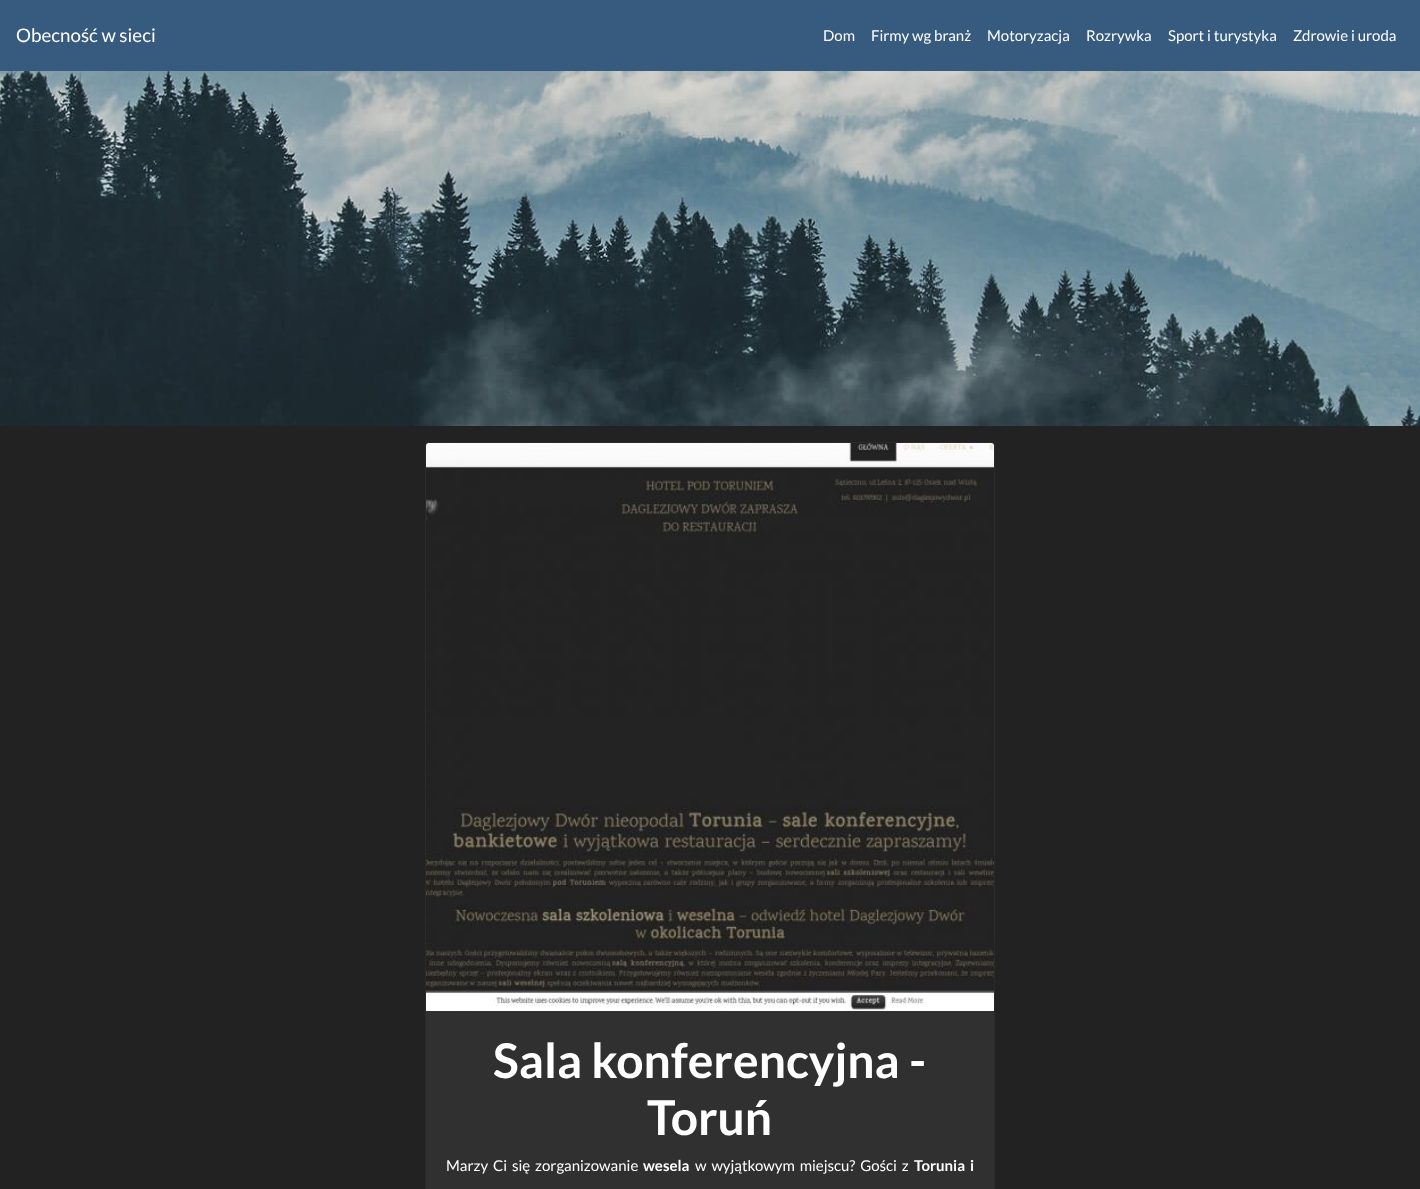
<svg xmlns="http://www.w3.org/2000/svg" width="1420" height="1189" viewBox="0 0 1420 1189">
  <rect width="100%" height="100%" fill="#222222"/>
  <rect x="0" y="0" width="1420" height="71" fill="#375a7f"/>
  <text x="16" y="42" font-family="Lato" font-size="18.75" fill="#ffffff">Obecność w sieci</text>
  <text x="823" y="41" font-family="Lato" font-size="15" fill="#ffffff">Dom</text>
  <text x="871" y="41" font-family="Lato" font-size="15" fill="#ffffff">Firmy wg branż</text>
  <text x="987" y="41" font-family="Lato" font-size="15" fill="#ffffff">Motoryzacja</text>
  <text x="1086" y="41" font-family="Lato" font-size="15" fill="#ffffff">Rozrywka</text>
  <text x="1168" y="41" font-family="Lato" font-size="15" fill="#ffffff">Sport i turystyka</text>
  <text x="1293" y="41" font-family="Lato" font-size="15" fill="#ffffff">Zdrowie i uroda</text>
  <image x="0" y="71" width="1420" height="355" href="img1.png"/>
  <rect x="425" y="442" width="570" height="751" rx="4" fill="#303030"/>
  <rect x="425.5" y="442.5" width="569" height="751" rx="3.5" fill="none" stroke="#000000" stroke-opacity="0.12"/>
  <image x="426" y="443" width="568" height="568" href="img2.png"/>
  <text x="493" y="1078" font-family="Lato" font-size="48" font-weight="bold" fill="#ffffff">Sala konferencyjna -</text>
  <text x="647" y="1135" font-family="Lato" font-size="48" font-weight="bold" fill="#ffffff">Toruń</text>
  <text x="446" y="1171" word-spacing="2" font-family="Lato" font-size="15" fill="#ffffff">Marzy Ci się zorganizowanie</text>
  <text x="643" y="1171" font-family="Lato" font-size="15" font-weight="bold" fill="#ffffff">wesela</text>
  <text x="695" y="1171" word-spacing="2" font-family="Lato" font-size="15" fill="#ffffff">w wyjątkowym miejscu? Gości z</text>
  <text x="914" y="1171" word-spacing="2" font-family="Lato" font-size="15" font-weight="bold" fill="#ffffff">Torunia i</text>
</svg>
